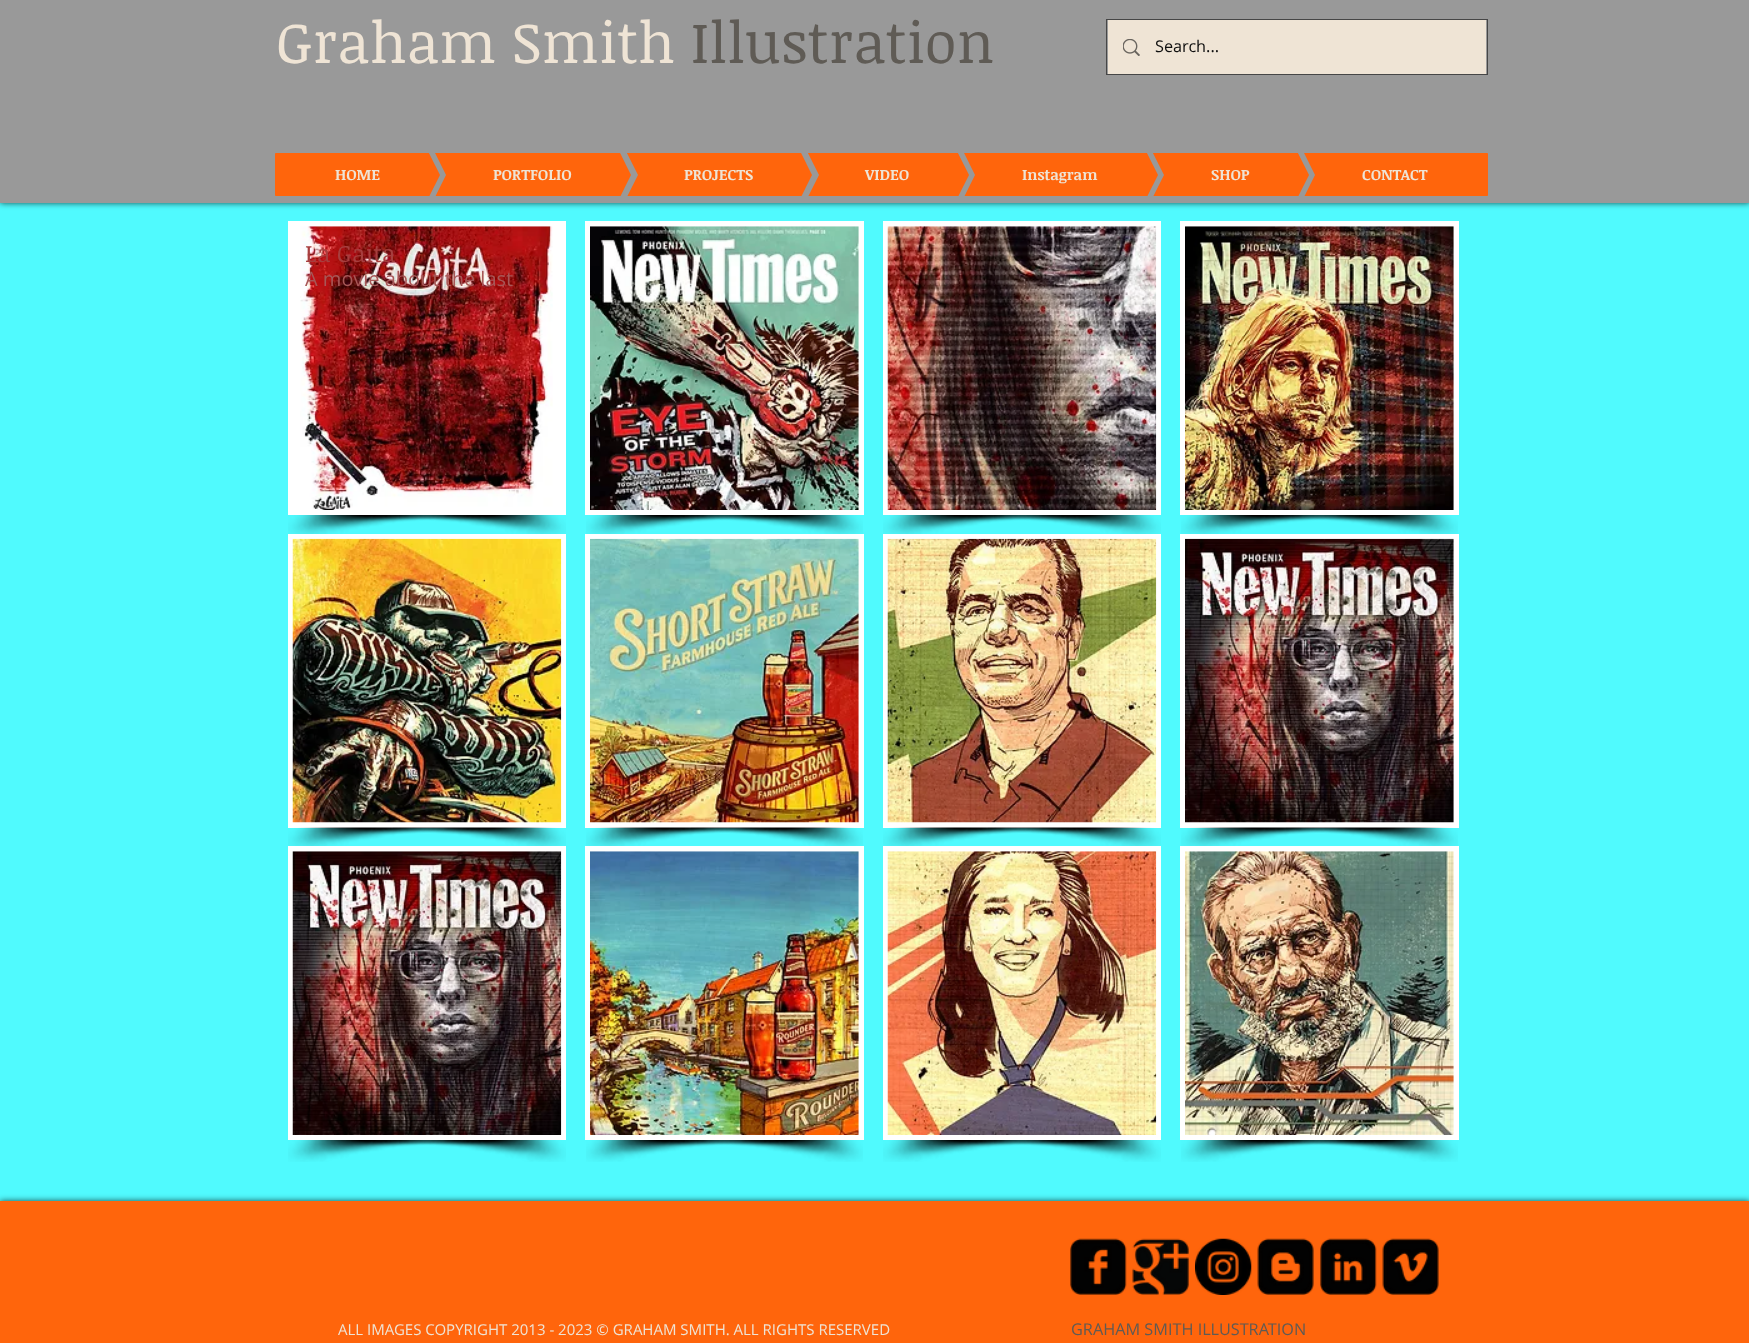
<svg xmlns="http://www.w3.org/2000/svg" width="1749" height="1343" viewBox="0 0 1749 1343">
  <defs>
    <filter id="blur1" x="-50%" y="-200%" width="200%" height="500%"><feGaussianBlur stdDeviation="3"/></filter>
    <clipPath id="clip1"><rect x="353" y="153" width="87" height="43"/></clipPath>
    <clipPath id="clip2"><rect x="359" y="153" width="87" height="43"/></clipPath>
    <clipPath id="clip3"><rect x="544" y="153" width="87" height="43"/></clipPath>
    <clipPath id="clip4"><rect x="550" y="153" width="88" height="43"/></clipPath>
    <clipPath id="clip5"><rect x="725" y="153" width="88" height="43"/></clipPath>
    <clipPath id="clip6"><rect x="731" y="153" width="88" height="43"/></clipPath>
    <clipPath id="clip7"><rect x="881" y="153" width="88" height="43"/></clipPath>
    <clipPath id="clip8"><rect x="888" y="153" width="87" height="43"/></clipPath>
    <clipPath id="clip9"><rect x="1070" y="153" width="88" height="43"/></clipPath>
    <clipPath id="clip10"><rect x="1076" y="153" width="88" height="43"/></clipPath>
    <clipPath id="clip11"><rect x="1221" y="153" width="88" height="43"/></clipPath>
    <clipPath id="clip12"><rect x="1228" y="153" width="87" height="43"/></clipPath>
  </defs>
  <rect width="100%" height="100%" fill="#50fafe"/>
  <rect x="0" y="0" width="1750" height="203" fill="#000000" fill-opacity="0.7" filter="url(#blur1)"/>
  <rect x="0" y="0" width="1749" height="203" fill="#999999"/>
  <text x="276" y="63" font-family="Noticia Text" font-size="57.5" fill="#efe4d5">Graham Smith</text>
  <text x="691" y="63" font-family="Noticia Text" font-size="57.5" fill="#5f5b55">Illustration</text>
  <rect x="1106.5" y="19.5" width="381" height="55" fill="none" stroke="#464646"/>
  <rect x="1108" y="20" width="378" height="54" fill="#efe4d5"/>
  <image x="1123" y="39" width="17" height="17" href="img1.png"/>
  <text x="1155" y="52" font-family="Open Sans" font-size="16.25" fill="#0f0f0f">Search...</text>
  <path d="M276 153H353V196H276C275.5 196 275 195.5 275 195V154C275 153.5 275.5 153 276 153Z" fill="#ff650c"/>
  <g clip-path="url(#clip1)">
    <path d="M440 175H352V0Z" fill="#ff650c"/>
    <path d="M352 175H440L352 350Z" fill="#ff650c"/>
  </g>
  <text x="335" y="180" font-family="Noticia Text" font-size="15" font-weight="bold" fill="#efe4d5">HOME</text>
  <g clip-path="url(#clip2)">
    <path d="M359 0H446V175ZM446 350H359L446 175Z" fill="#ff650c"/>
  </g>
  <rect x="446" y="153" width="98" height="43" fill="#ff650c"/>
  <g clip-path="url(#clip3)">
    <path d="M631 175H544V0Z" fill="#ff650c"/>
    <path d="M544 175H631L544 350Z" fill="#ff650c"/>
  </g>
  <text x="493" y="180" font-family="Noticia Text" font-size="15" font-weight="bold" fill="#efe4d5">PORTFOLIO</text>
  <g clip-path="url(#clip4)">
    <path d="M550 0H638V175ZM638 350H550L638 175Z" fill="#ff650c"/>
  </g>
  <rect x="638" y="153" width="87" height="43" fill="#ff650c"/>
  <g clip-path="url(#clip5)">
    <path d="M812 175H725V0Z" fill="#ff650c"/>
    <path d="M725 175H812L725 350Z" fill="#ff650c"/>
  </g>
  <text x="684" y="180" font-family="Noticia Text" font-size="15" font-weight="bold" fill="#efe4d5">PROJECTS</text>
  <g clip-path="url(#clip6)">
    <path d="M731 0H819V175ZM819 350H731L819 175Z" fill="#ff650c"/>
  </g>
  <rect x="819" y="153" width="62" height="43" fill="#ff650c"/>
  <g clip-path="url(#clip7)">
    <path d="M969 175H881V0Z" fill="#ff650c"/>
    <path d="M881 175H969L881 350Z" fill="#ff650c"/>
  </g>
  <text x="865" y="180" font-family="Noticia Text" font-size="15" font-weight="bold" fill="#efe4d5">VIDEO</text>
  <g clip-path="url(#clip8)">
    <path d="M888 0H975V175ZM975 350H888L975 175Z" fill="#ff650c"/>
  </g>
  <rect x="975" y="153" width="95" height="43" fill="#ff650c"/>
  <g clip-path="url(#clip9)">
    <path d="M1158 175H1070V0Z" fill="#ff650c"/>
    <path d="M1070 175H1158L1070 350Z" fill="#ff650c"/>
  </g>
  <text x="1022" y="180" font-family="Noticia Text" font-size="15" font-weight="bold" fill="#efe4d5">Instagram</text>
  <g clip-path="url(#clip10)">
    <path d="M1076 0H1164V175ZM1164 350H1076L1164 175Z" fill="#ff650c"/>
  </g>
  <rect x="1164" y="153" width="57" height="43" fill="#ff650c"/>
  <g clip-path="url(#clip11)">
    <path d="M1309 175H1221V0Z" fill="#ff650c"/>
    <path d="M1221 175H1309L1221 350Z" fill="#ff650c"/>
  </g>
  <text x="1211" y="180" font-family="Noticia Text" font-size="15" font-weight="bold" fill="#efe4d5">SHOP</text>
  <g clip-path="url(#clip12)">
    <path d="M1228 0H1315V175ZM1315 350H1228L1315 175Z" fill="#ff650c"/>
  </g>
  <rect x="1315" y="153" width="85" height="43" fill="#ff650c"/>
  <path d="M1400 153H1487C1487.5 153 1488 153.5 1488 154V195C1488 195.5 1487.5 196 1487 196H1400Z" fill="#ff650c"/>
  <text x="1362" y="180" font-family="Noticia Text" font-size="15" font-weight="bold" fill="#efe4d5">CONTACT</text>
  <rect x="288" y="221" width="278" height="294" fill="#ffffff"/>
  <image x="300" y="226" width="253" height="284" href="img2.png"/>
  <text x="305" y="262" font-family="Noticia Text" font-size="24" fill="#a73e3e">La Gaita</text>
  <text x="305" y="286" font-family="Open Sans" font-size="20" fill="#a75757">A movie about the last</text>
  <image x="288" y="515" width="190" height="19" href="img3.png"/>
  <image x="399" y="515" width="167" height="19" href="img4.png"/>
  <rect x="585" y="221" width="279" height="294" fill="#ffffff"/>
  <image x="590" y="226" width="269" height="284" href="img5.png"/>
  <image x="586" y="515" width="190" height="19" href="img6.png"/>
  <image x="697" y="515" width="166" height="19" href="img7.png"/>
  <rect x="883" y="221" width="278" height="294" fill="#ffffff"/>
  <image x="887" y="226" width="270" height="284" href="img8.png"/>
  <image x="883" y="515" width="190" height="19" href="img9.png"/>
  <image x="994" y="515" width="167" height="19" href="img10.png"/>
  <rect x="1180" y="221" width="279" height="294" fill="#ffffff"/>
  <image x="1185" y="226" width="269" height="284" href="img11.png"/>
  <image x="1181" y="515" width="190" height="19" href="img12.png"/>
  <image x="1292" y="515" width="166" height="19" href="img13.png"/>
  <rect x="288" y="534" width="278" height="294" fill="#ffffff"/>
  <image x="292" y="538" width="270" height="285" href="img14.png"/>
  <image x="288" y="827" width="186" height="19" href="img15.png"/>
  <image x="393" y="827" width="173" height="19" href="img16.png"/>
  <rect x="585" y="534" width="279" height="294" fill="#ffffff"/>
  <image x="590" y="538" width="269" height="285" href="img17.png"/>
  <image x="586" y="827" width="185" height="19" href="img18.png"/>
  <image x="691" y="827" width="172" height="19" href="img19.png"/>
  <rect x="883" y="534" width="278" height="294" fill="#ffffff"/>
  <image x="887" y="538" width="270" height="285" href="img20.png"/>
  <image x="883" y="827" width="186" height="19" href="img21.png"/>
  <image x="988" y="827" width="173" height="19" href="img22.png"/>
  <rect x="1180" y="534" width="279" height="294" fill="#ffffff"/>
  <image x="1185" y="538" width="269" height="285" href="img23.png"/>
  <image x="1181" y="827" width="185" height="19" href="img24.png"/>
  <image x="1286" y="827" width="172" height="19" href="img25.png"/>
  <rect x="288" y="846" width="278" height="294" fill="#ffffff"/>
  <image x="292" y="851" width="270" height="284" href="img26.png"/>
  <image x="288" y="1140" width="190" height="22" href="img27.png"/>
  <image x="399" y="1140" width="167" height="22" href="img28.png"/>
  <rect x="585" y="846" width="279" height="294" fill="#ffffff"/>
  <image x="590" y="851" width="269" height="284" href="img29.png"/>
  <image x="586" y="1140" width="190" height="22" href="img30.png"/>
  <image x="697" y="1140" width="166" height="22" href="img31.png"/>
  <rect x="883" y="846" width="278" height="294" fill="#ffffff"/>
  <image x="887" y="851" width="270" height="284" href="img32.png"/>
  <image x="883" y="1140" width="190" height="22" href="img33.png"/>
  <image x="994" y="1140" width="167" height="22" href="img34.png"/>
  <rect x="1180" y="846" width="279" height="294" fill="#ffffff"/>
  <image x="1185" y="851" width="269" height="284" href="img35.png"/>
  <image x="1181" y="1140" width="190" height="22" href="img36.png"/>
  <image x="1292" y="1140" width="166" height="22" href="img37.png"/>
  <rect x="0" y="1201" width="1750" height="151" fill="#000000" fill-opacity="0.7" filter="url(#blur1)"/>
  <rect x="0" y="1201" width="1749" height="142" fill="#ff650c"/>
  <image x="1070" y="1238" width="57" height="57" href="img38.png"/>
  <image x="1132" y="1238" width="57" height="57" href="img39.png"/>
  <image x="1195" y="1238" width="57" height="57" href="img40.png"/>
  <image x="1257" y="1238" width="57" height="57" href="img41.png"/>
  <image x="1320" y="1238" width="57" height="57" href="img42.png"/>
  <image x="1382" y="1238" width="57" height="57" href="img43.png"/>
  <text x="338" y="1335" font-family="Open Sans" font-size="15" fill="#efe4d5">ALL IMAGES COPYRIGHT 2013 - 2023 © GRAHAM SMITH. ALL RIGHTS RESERVED</text>
  <text x="1071" y="1335" font-family="Open Sans" font-size="16.25" fill="#5f5b55">GRAHAM SMITH ILLUSTRATION</text>
</svg>
